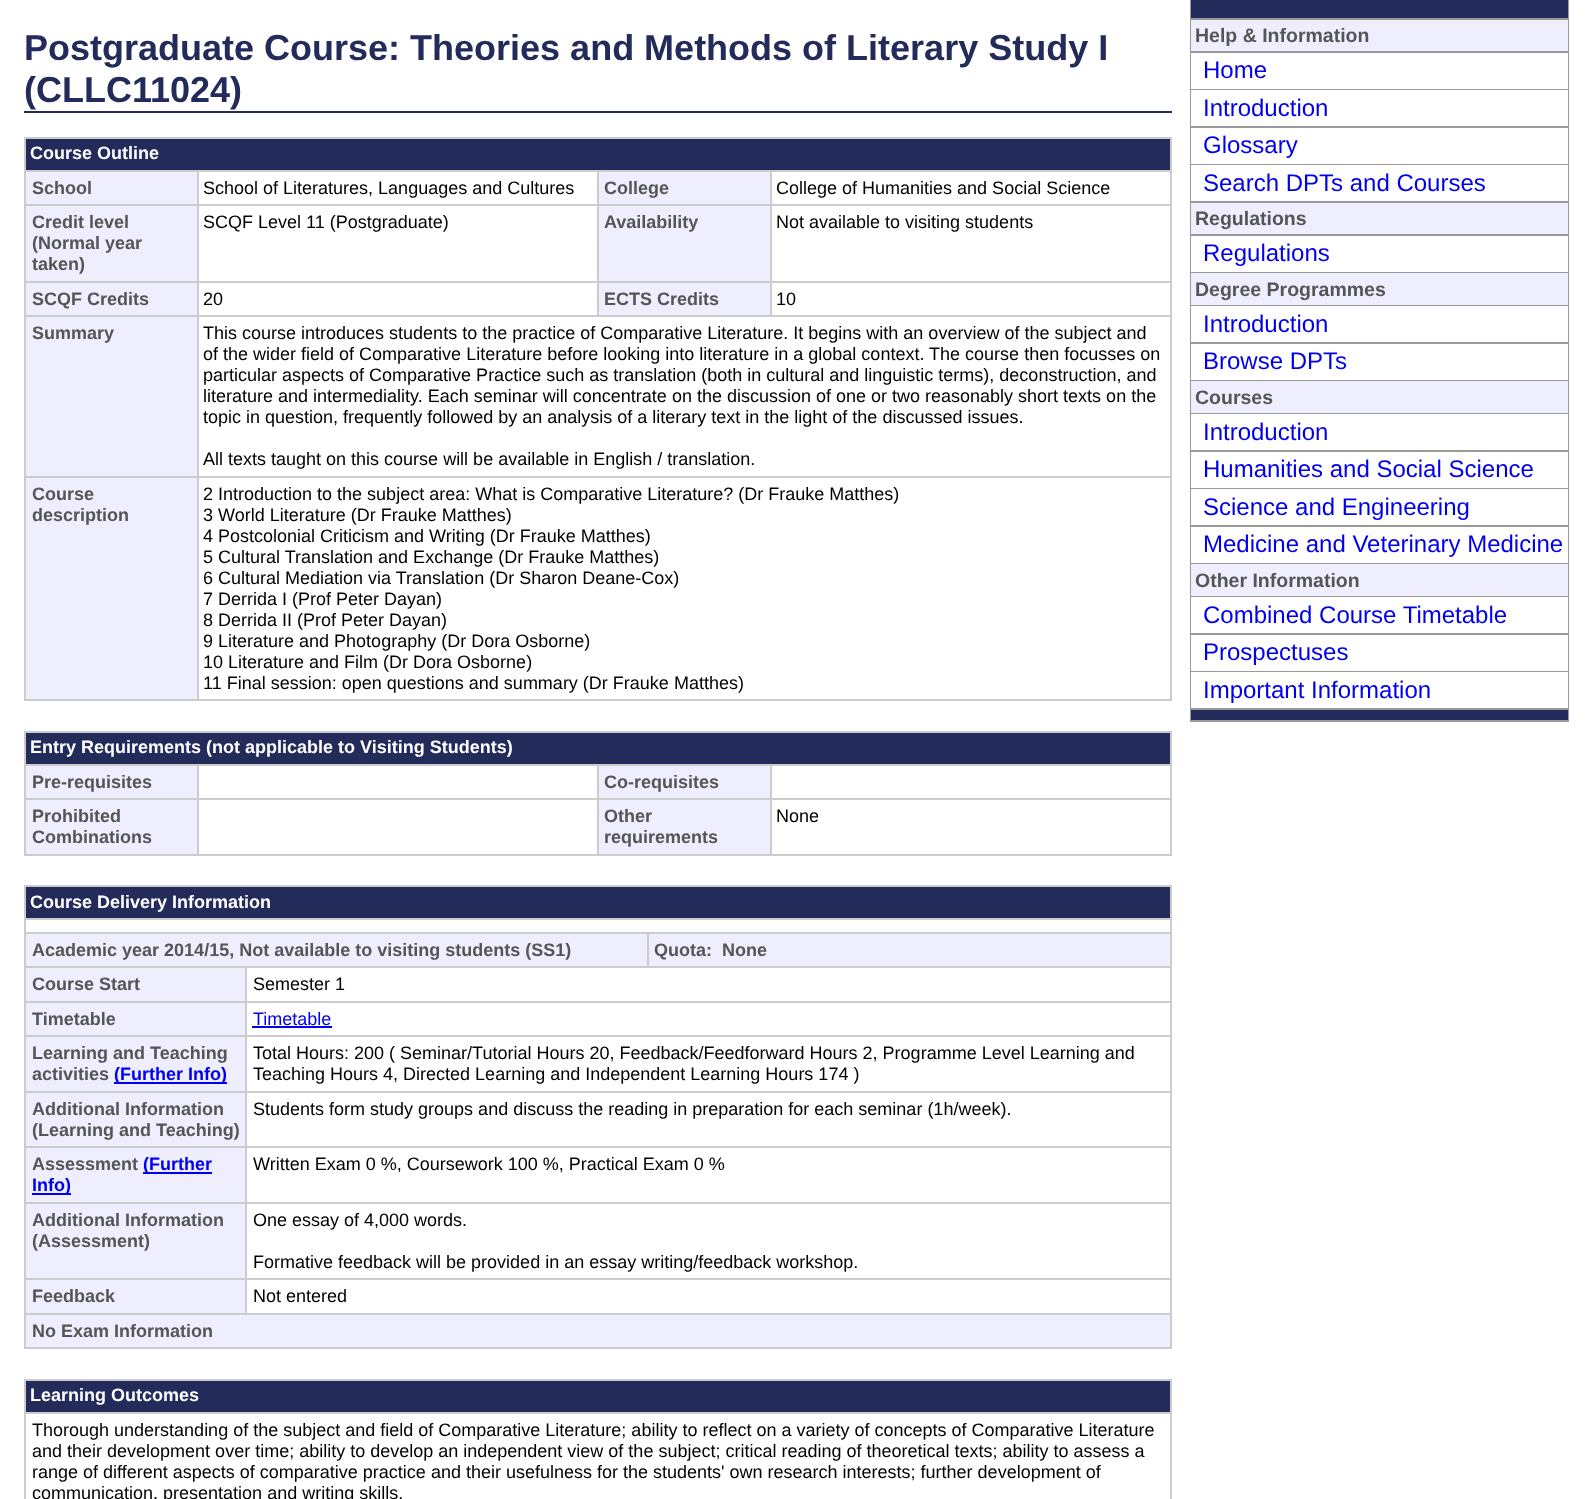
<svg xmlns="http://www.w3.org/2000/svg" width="1593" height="1499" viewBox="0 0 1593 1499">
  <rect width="100%" height="100%" fill="#ffffff"/>
  <rect x="24" y="111" width="1148" height="2" fill="#232b5a"/>
  <text x="24" y="60" font-family="Liberation Sans" font-size="36" font-weight="bold" fill="#232b5a">Postgraduate Course: Theories and Methods of Literary Study I</text>
  <text x="24" y="102" font-family="Liberation Sans" font-size="36" font-weight="bold" fill="#232b5a">(CLLC11024)</text>
  <rect x="24" y="137" width="1148" height="2" fill="#cccccc"/>
  <rect x="1170" y="137" width="2" height="564" fill="#cccccc"/>
  <rect x="24" y="699" width="1148" height="2" fill="#cccccc"/>
  <rect x="24" y="137" width="2" height="564" fill="#cccccc"/>
  <rect x="26" y="139" width="1144" height="31" fill="#232b5a"/>
  <text x="30" y="159" font-family="Liberation Sans" font-size="18" font-weight="bold" fill="#ffffff">Course Outline</text>
  <rect x="26" y="172" width="171" height="32" fill="#eeeeff"/>
  <rect x="770" y="170" width="402" height="2" fill="#cccccc"/>
  <rect x="770" y="204" width="402" height="2" fill="#cccccc"/>
  <rect x="770" y="281" width="402" height="2" fill="#cccccc"/>
  <rect x="197" y="315" width="975" height="2" fill="#cccccc"/>
  <rect x="770" y="281" width="2" height="36" fill="#cccccc"/>
  <rect x="597" y="281" width="174" height="2" fill="#cccccc"/>
  <rect x="770" y="204" width="2" height="78" fill="#cccccc"/>
  <rect x="597" y="204" width="174" height="2" fill="#cccccc"/>
  <rect x="770" y="170" width="2" height="36" fill="#cccccc"/>
  <rect x="597" y="170" width="174" height="2" fill="#cccccc"/>
  <rect x="597" y="281" width="2" height="36" fill="#cccccc"/>
  <rect x="197" y="281" width="402" height="2" fill="#cccccc"/>
  <rect x="597" y="204" width="2" height="78" fill="#cccccc"/>
  <rect x="197" y="204" width="402" height="2" fill="#cccccc"/>
  <rect x="597" y="170" width="2" height="36" fill="#cccccc"/>
  <rect x="197" y="170" width="402" height="2" fill="#cccccc"/>
  <rect x="197" y="476" width="975" height="2" fill="#cccccc"/>
  <rect x="197" y="476" width="2" height="225" fill="#cccccc"/>
  <rect x="24" y="476" width="174" height="2" fill="#cccccc"/>
  <rect x="197" y="315" width="2" height="162" fill="#cccccc"/>
  <rect x="24" y="315" width="174" height="2" fill="#cccccc"/>
  <rect x="197" y="281" width="2" height="36" fill="#cccccc"/>
  <rect x="24" y="281" width="174" height="2" fill="#cccccc"/>
  <rect x="197" y="204" width="2" height="78" fill="#cccccc"/>
  <rect x="24" y="204" width="174" height="2" fill="#cccccc"/>
  <rect x="197" y="170" width="2" height="36" fill="#cccccc"/>
  <rect x="24" y="170" width="174" height="2" fill="#cccccc"/>
  <text x="32" y="194" font-family="Liberation Sans" font-size="18" font-weight="bold" fill="#555555">School</text>
  <text x="203" y="194" font-family="Liberation Sans" font-size="18" fill="#000000">School of Literatures, Languages and Cultures</text>
  <rect x="599" y="172" width="171" height="32" fill="#eeeeff"/>
  <text x="604" y="194" font-family="Liberation Sans" font-size="18" font-weight="bold" fill="#555555">College</text>
  <text x="776" y="194" font-family="Liberation Sans" font-size="18" fill="#000000">College of Humanities and Social Science</text>
  <rect x="26" y="206" width="171" height="75" fill="#eeeeff"/>
  <text x="32" y="228" font-family="Liberation Sans" font-size="18" font-weight="bold" fill="#555555">Credit level</text>
  <text x="32" y="249" font-family="Liberation Sans" font-size="18" font-weight="bold" fill="#555555">(Normal year</text>
  <text x="32" y="270" font-family="Liberation Sans" font-size="18" font-weight="bold" fill="#555555">taken)</text>
  <text x="203" y="228" font-family="Liberation Sans" font-size="18" fill="#000000">SCQF Level 11 (Postgraduate)</text>
  <rect x="599" y="206" width="171" height="75" fill="#eeeeff"/>
  <text x="604" y="228" font-family="Liberation Sans" font-size="18" font-weight="bold" fill="#555555">Availability</text>
  <text x="776" y="228" font-family="Liberation Sans" font-size="18" fill="#000000">Not available to visiting students</text>
  <rect x="26" y="283" width="171" height="32" fill="#eeeeff"/>
  <text x="32" y="305" font-family="Liberation Sans" font-size="18" font-weight="bold" fill="#555555">SCQF Credits</text>
  <text x="203" y="305" font-family="Liberation Sans" font-size="18" fill="#000000">20</text>
  <rect x="599" y="283" width="171" height="32" fill="#eeeeff"/>
  <text x="604" y="305" font-family="Liberation Sans" font-size="18" font-weight="bold" fill="#555555">ECTS Credits</text>
  <text x="776" y="305" font-family="Liberation Sans" font-size="18" fill="#000000">10</text>
  <rect x="26" y="317" width="171" height="159" fill="#eeeeff"/>
  <text x="32" y="339" font-family="Liberation Sans" font-size="18" font-weight="bold" fill="#555555">Summary</text>
  <text x="203" y="339" font-family="Liberation Sans" font-size="18" fill="#000000">This course introduces students to the practice of Comparative Literature. It begins with an overview of the subject and</text>
  <text x="203" y="360" font-family="Liberation Sans" font-size="18" fill="#000000">of the wider field of Comparative Literature before looking into literature in a global context. The course then focusses on</text>
  <text x="203" y="381" font-family="Liberation Sans" font-size="18" fill="#000000">particular aspects of Comparative Practice such as translation (both in cultural and linguistic terms), deconstruction, and</text>
  <text x="203" y="402" font-family="Liberation Sans" font-size="18" fill="#000000">literature and intermediality. Each seminar will concentrate on the discussion of one or two reasonably short texts on the</text>
  <text x="203" y="423" font-family="Liberation Sans" font-size="18" fill="#000000">topic in question, frequently followed by an analysis of a literary text in the light of the discussed issues.</text>
  <text x="203" y="465" font-family="Liberation Sans" font-size="18" fill="#000000">All texts taught on this course will be available in English / translation.</text>
  <rect x="26" y="478" width="171" height="221" fill="#eeeeff"/>
  <text x="32" y="500" font-family="Liberation Sans" font-size="18" font-weight="bold" fill="#555555">Course</text>
  <text x="32" y="521" font-family="Liberation Sans" font-size="18" font-weight="bold" fill="#555555">description</text>
  <text x="203" y="500" font-family="Liberation Sans" font-size="18" fill="#000000">2 Introduction to the subject area: What is Comparative Literature? (Dr Frauke Matthes)</text>
  <text x="203" y="521" font-family="Liberation Sans" font-size="18" fill="#000000">3 World Literature (Dr Frauke Matthes)</text>
  <text x="203" y="542" font-family="Liberation Sans" font-size="18" fill="#000000">4 Postcolonial Criticism and Writing (Dr Frauke Matthes)</text>
  <text x="203" y="563" font-family="Liberation Sans" font-size="18" fill="#000000">5 Cultural Translation and Exchange (Dr Frauke Matthes)</text>
  <text x="203" y="584" font-family="Liberation Sans" font-size="18" fill="#000000">6 Cultural Mediation via Translation (Dr Sharon Deane-Cox)</text>
  <text x="203" y="605" font-family="Liberation Sans" font-size="18" fill="#000000">7 Derrida I (Prof Peter Dayan)</text>
  <text x="203" y="626" font-family="Liberation Sans" font-size="18" fill="#000000">8 Derrida II (Prof Peter Dayan)</text>
  <text x="203" y="647" font-family="Liberation Sans" font-size="18" fill="#000000">9 Literature and Photography (Dr Dora Osborne)</text>
  <text x="203" y="668" font-family="Liberation Sans" font-size="18" fill="#000000">10 Literature and Film (Dr Dora Osborne)</text>
  <text x="203" y="689" font-family="Liberation Sans" font-size="18" fill="#000000">11 Final session: open questions and summary (Dr Frauke Matthes)</text>
  <rect x="24" y="731" width="1148" height="2" fill="#cccccc"/>
  <rect x="1170" y="731" width="2" height="124" fill="#cccccc"/>
  <rect x="24" y="854" width="1148" height="2" fill="#cccccc"/>
  <rect x="24" y="731" width="2" height="124" fill="#cccccc"/>
  <rect x="26" y="733" width="1144" height="31" fill="#232b5a"/>
  <text x="30" y="753" font-family="Liberation Sans" font-size="18" font-weight="bold" fill="#ffffff">Entry Requirements (not applicable to Visiting Students)</text>
  <rect x="26" y="766" width="171" height="32" fill="#eeeeff"/>
  <rect x="770" y="764" width="402" height="2" fill="#cccccc"/>
  <rect x="770" y="798" width="402" height="2" fill="#cccccc"/>
  <rect x="770" y="798" width="2" height="57" fill="#cccccc"/>
  <rect x="597" y="798" width="174" height="2" fill="#cccccc"/>
  <rect x="770" y="764" width="2" height="36" fill="#cccccc"/>
  <rect x="597" y="764" width="174" height="2" fill="#cccccc"/>
  <rect x="597" y="798" width="2" height="57" fill="#cccccc"/>
  <rect x="197" y="798" width="402" height="2" fill="#cccccc"/>
  <rect x="597" y="764" width="2" height="36" fill="#cccccc"/>
  <rect x="197" y="764" width="402" height="2" fill="#cccccc"/>
  <rect x="197" y="798" width="2" height="57" fill="#cccccc"/>
  <rect x="24" y="798" width="174" height="2" fill="#cccccc"/>
  <rect x="197" y="764" width="2" height="36" fill="#cccccc"/>
  <rect x="24" y="764" width="174" height="2" fill="#cccccc"/>
  <text x="32" y="788" font-family="Liberation Sans" font-size="18" font-weight="bold" fill="#555555">Pre-requisites</text>
  <rect x="599" y="766" width="171" height="32" fill="#eeeeff"/>
  <text x="604" y="788" font-family="Liberation Sans" font-size="18" font-weight="bold" fill="#555555">Co-requisites</text>
  <rect x="26" y="800" width="171" height="54" fill="#eeeeff"/>
  <text x="32" y="822" font-family="Liberation Sans" font-size="18" font-weight="bold" fill="#555555">Prohibited</text>
  <text x="32" y="843" font-family="Liberation Sans" font-size="18" font-weight="bold" fill="#555555">Combinations</text>
  <rect x="599" y="800" width="171" height="54" fill="#eeeeff"/>
  <text x="604" y="822" font-family="Liberation Sans" font-size="18" font-weight="bold" fill="#555555">Other</text>
  <text x="604" y="843" font-family="Liberation Sans" font-size="18" font-weight="bold" fill="#555555">requirements</text>
  <text x="776" y="822" font-family="Liberation Sans" font-size="18" fill="#000000">None</text>
  <rect x="24" y="885" width="1148" height="2" fill="#cccccc"/>
  <rect x="1170" y="885" width="2" height="464" fill="#cccccc"/>
  <rect x="24" y="1347" width="1148" height="2" fill="#cccccc"/>
  <rect x="24" y="885" width="2" height="464" fill="#cccccc"/>
  <rect x="26" y="887" width="1144" height="31" fill="#232b5a"/>
  <text x="30" y="908" font-family="Liberation Sans" font-size="18" font-weight="bold" fill="#ffffff">Course Delivery Information</text>
  <rect x="24" y="918" width="1148" height="2" fill="#cccccc"/>
  <rect x="26" y="934" width="621" height="32" fill="#eeeeff"/>
  <rect x="647" y="932" width="525" height="2" fill="#cccccc"/>
  <rect x="245" y="966" width="927" height="2" fill="#cccccc"/>
  <rect x="647" y="932" width="2" height="36" fill="#cccccc"/>
  <rect x="24" y="932" width="624" height="2" fill="#cccccc"/>
  <text x="32" y="956" font-family="Liberation Sans" font-size="18" font-weight="bold" fill="#555555">Academic year 2014/15, Not available to visiting students (SS1)</text>
  <rect x="649" y="934" width="521" height="32" fill="#eeeeff"/>
  <text x="654" y="956" font-family="Liberation Sans" font-size="18" font-weight="bold" fill="#555555" xml:space="preserve">Quota:  None</text>
  <rect x="26" y="968" width="219" height="33" fill="#eeeeff"/>
  <rect x="245" y="1001" width="927" height="2" fill="#cccccc"/>
  <rect x="245" y="1035" width="927" height="2" fill="#cccccc"/>
  <rect x="245" y="1091" width="927" height="2" fill="#cccccc"/>
  <rect x="245" y="1146" width="927" height="2" fill="#cccccc"/>
  <rect x="245" y="1202" width="927" height="2" fill="#cccccc"/>
  <rect x="245" y="1278" width="927" height="2" fill="#cccccc"/>
  <rect x="24" y="1313" width="1148" height="2" fill="#cccccc"/>
  <rect x="245" y="1278" width="2" height="36" fill="#cccccc"/>
  <rect x="24" y="1278" width="222" height="2" fill="#cccccc"/>
  <rect x="245" y="1202" width="2" height="78" fill="#cccccc"/>
  <rect x="24" y="1202" width="222" height="2" fill="#cccccc"/>
  <rect x="245" y="1146" width="2" height="57" fill="#cccccc"/>
  <rect x="24" y="1146" width="222" height="2" fill="#cccccc"/>
  <rect x="245" y="1091" width="2" height="57" fill="#cccccc"/>
  <rect x="24" y="1091" width="222" height="2" fill="#cccccc"/>
  <rect x="245" y="1035" width="2" height="57" fill="#cccccc"/>
  <rect x="24" y="1035" width="222" height="2" fill="#cccccc"/>
  <rect x="245" y="1001" width="2" height="36" fill="#cccccc"/>
  <rect x="24" y="1001" width="222" height="2" fill="#cccccc"/>
  <rect x="245" y="966" width="2" height="36" fill="#cccccc"/>
  <rect x="24" y="966" width="222" height="2" fill="#cccccc"/>
  <text x="32" y="990" font-family="Liberation Sans" font-size="18" font-weight="bold" fill="#555555">Course Start</text>
  <text x="253" y="990" font-family="Liberation Sans" font-size="18" fill="#000000">Semester 1</text>
  <rect x="26" y="1003" width="219" height="32" fill="#eeeeff"/>
  <text x="32" y="1025" font-family="Liberation Sans" font-size="18" font-weight="bold" fill="#555555">Timetable</text>
  <text x="253" y="1025" font-family="Liberation Sans" font-size="18" fill="#0000ee">Timetable</text>
  <rect x="252" y="1026" width="80" height="2" fill="#0000ee"/>
  <rect x="26" y="1037" width="219" height="54" fill="#eeeeff"/>
  <text x="32" y="1059" font-family="Liberation Sans" font-size="18" font-weight="bold" fill="#555555">Learning and Teaching</text>
  <text x="32" y="1080" font-family="Liberation Sans" font-size="18" font-weight="bold" fill="#555555">activities</text>
  <rect x="114" y="1082" width="113" height="2" fill="#0000ee"/>
  <text x="114" y="1080" font-family="Liberation Sans" font-size="18" font-weight="bold" fill="#0000ee">(Further Info)</text>
  <text x="253" y="1059" font-family="Liberation Sans" font-size="18" fill="#000000">Total Hours: 200 ( Seminar/Tutorial Hours 20, Feedback/Feedforward Hours 2, Programme Level Learning and</text>
  <text x="253" y="1080" font-family="Liberation Sans" font-size="18" fill="#000000">Teaching Hours 4, Directed Learning and Independent Learning Hours 174 )</text>
  <rect x="26" y="1093" width="219" height="53" fill="#eeeeff"/>
  <text x="32" y="1115" font-family="Liberation Sans" font-size="18" font-weight="bold" fill="#555555">Additional Information</text>
  <text x="32" y="1136" font-family="Liberation Sans" font-size="18" font-weight="bold" fill="#555555">(Learning and Teaching)</text>
  <text x="253" y="1115" font-family="Liberation Sans" font-size="18" fill="#000000">Students form study groups and discuss the reading in preparation for each seminar (1h/week).</text>
  <rect x="26" y="1148" width="219" height="54" fill="#eeeeff"/>
  <text x="32" y="1170" font-family="Liberation Sans" font-size="18" font-weight="bold" fill="#555555">Assessment</text>
  <rect x="143" y="1172" width="69" height="2" fill="#0000ee"/>
  <text x="143" y="1170" font-family="Liberation Sans" font-size="18" font-weight="bold" fill="#0000ee">(Further</text>
  <rect x="32" y="1193" width="39" height="2" fill="#0000ee"/>
  <text x="32" y="1191" font-family="Liberation Sans" font-size="18" font-weight="bold" fill="#0000ee">Info)</text>
  <text x="253" y="1170" font-family="Liberation Sans" font-size="18" fill="#000000">Written Exam 0 %, Coursework 100 %, Practical Exam 0 %</text>
  <rect x="26" y="1204" width="219" height="74" fill="#eeeeff"/>
  <text x="32" y="1226" font-family="Liberation Sans" font-size="18" font-weight="bold" fill="#555555">Additional Information</text>
  <text x="32" y="1247" font-family="Liberation Sans" font-size="18" font-weight="bold" fill="#555555">(Assessment)</text>
  <text x="253" y="1226" font-family="Liberation Sans" font-size="18" fill="#000000">One essay of 4,000 words.</text>
  <text x="253" y="1268" font-family="Liberation Sans" font-size="18" fill="#000000">Formative feedback will be provided in an essay writing/feedback workshop.</text>
  <rect x="26" y="1280" width="219" height="33" fill="#eeeeff"/>
  <text x="32" y="1302" font-family="Liberation Sans" font-size="18" font-weight="bold" fill="#555555">Feedback</text>
  <text x="253" y="1302" font-family="Liberation Sans" font-size="18" fill="#000000">Not entered</text>
  <rect x="26" y="1315" width="1144" height="32" fill="#eeeeff"/>
  <text x="32" y="1337" font-family="Liberation Sans" font-size="18" font-weight="bold" fill="#555555">No Exam Information</text>
  <rect x="24" y="1379" width="1148" height="2" fill="#cccccc"/>
  <rect x="1170" y="1379" width="2" height="120" fill="#cccccc"/>
  <rect x="24" y="1379" width="2" height="120" fill="#cccccc"/>
  <rect x="26" y="1381" width="1144" height="31" fill="#232b5a"/>
  <text x="30" y="1401" font-family="Liberation Sans" font-size="18" font-weight="bold" fill="#ffffff">Learning Outcomes</text>
  <rect x="24" y="1412" width="1148" height="2" fill="#cccccc"/>
  <text x="32" y="1436" font-family="Liberation Sans" font-size="18" fill="#000000">Thorough understanding of the subject and field of Comparative Literature; ability to reflect on a variety of concepts of Comparative Literature</text>
  <text x="32" y="1457" font-family="Liberation Sans" font-size="18" fill="#000000">and their development over time; ability to develop an independent view of the subject; critical reading of theoretical texts; ability to assess a</text>
  <text x="32" y="1478" font-family="Liberation Sans" font-size="18" fill="#000000">range of different aspects of comparative practice and their usefulness for the students' own research interests; further development of</text>
  <text x="32" y="1499" font-family="Liberation Sans" font-size="18" fill="#000000">communication, presentation and writing skills.</text>
  <rect x="1190" y="0" width="379" height="722" fill="#999999"/>
  <rect x="1191" y="0" width="377" height="18" fill="#232b5a"/>
  <rect x="1191" y="20" width="377" height="31" fill="#eeeeff"/>
  <text x="1195" y="42" font-family="Liberation Sans" font-size="19.5" font-weight="bold" fill="#555555">Help &amp; Information</text>
  <rect x="1191" y="53" width="377" height="36" fill="#ffffff"/>
  <text x="1203" y="78" font-family="Liberation Sans" font-size="24" fill="#0000ee">Home</text>
  <rect x="1191" y="90" width="377" height="36" fill="#ffffff"/>
  <text x="1203" y="116" font-family="Liberation Sans" font-size="24" fill="#0000ee">Introduction</text>
  <rect x="1191" y="128" width="377" height="36" fill="#ffffff"/>
  <text x="1203" y="153" font-family="Liberation Sans" font-size="24" fill="#0000ee">Glossary</text>
  <rect x="1191" y="165" width="377" height="36" fill="#ffffff"/>
  <text x="1203" y="191" font-family="Liberation Sans" font-size="24" fill="#0000ee">Search DPTs and Courses</text>
  <rect x="1191" y="203" width="377" height="31" fill="#eeeeff"/>
  <text x="1195" y="225" font-family="Liberation Sans" font-size="19.5" font-weight="bold" fill="#555555">Regulations</text>
  <rect x="1191" y="236" width="377" height="36" fill="#ffffff"/>
  <text x="1203" y="261" font-family="Liberation Sans" font-size="24" fill="#0000ee">Regulations</text>
  <rect x="1191" y="273" width="377" height="32" fill="#eeeeff"/>
  <text x="1195" y="296" font-family="Liberation Sans" font-size="19.5" font-weight="bold" fill="#555555">Degree Programmes</text>
  <rect x="1191" y="306" width="377" height="36" fill="#ffffff"/>
  <text x="1203" y="332" font-family="Liberation Sans" font-size="24" fill="#0000ee">Introduction</text>
  <rect x="1191" y="344" width="377" height="36" fill="#ffffff"/>
  <text x="1203" y="369" font-family="Liberation Sans" font-size="24" fill="#0000ee">Browse DPTs</text>
  <rect x="1191" y="381" width="377" height="32" fill="#eeeeff"/>
  <text x="1195" y="404" font-family="Liberation Sans" font-size="19.5" font-weight="bold" fill="#555555">Courses</text>
  <rect x="1191" y="414" width="377" height="36" fill="#ffffff"/>
  <text x="1203" y="440" font-family="Liberation Sans" font-size="24" fill="#0000ee">Introduction</text>
  <rect x="1191" y="452" width="377" height="36" fill="#ffffff"/>
  <text x="1203" y="477" font-family="Liberation Sans" font-size="24" fill="#0000ee">Humanities and Social Science</text>
  <rect x="1191" y="489" width="377" height="36" fill="#ffffff"/>
  <text x="1203" y="515" font-family="Liberation Sans" font-size="24" fill="#0000ee">Science and Engineering</text>
  <rect x="1191" y="527" width="377" height="36" fill="#ffffff"/>
  <text x="1203" y="552" font-family="Liberation Sans" font-size="24" fill="#0000ee">Medicine and Veterinary Medicine</text>
  <rect x="1191" y="564" width="377" height="32" fill="#eeeeff"/>
  <text x="1195" y="587" font-family="Liberation Sans" font-size="19.5" font-weight="bold" fill="#555555">Other Information</text>
  <rect x="1191" y="597" width="377" height="36" fill="#ffffff"/>
  <text x="1203" y="623" font-family="Liberation Sans" font-size="24" fill="#0000ee">Combined Course Timetable</text>
  <rect x="1191" y="635" width="377" height="36" fill="#ffffff"/>
  <text x="1203" y="660" font-family="Liberation Sans" font-size="24" fill="#0000ee">Prospectuses</text>
  <rect x="1191" y="672" width="377" height="36" fill="#ffffff"/>
  <text x="1203" y="698" font-family="Liberation Sans" font-size="24" fill="#0000ee">Important Information</text>
  <rect x="1191" y="710" width="377" height="10" fill="#232b5a"/>
</svg>
